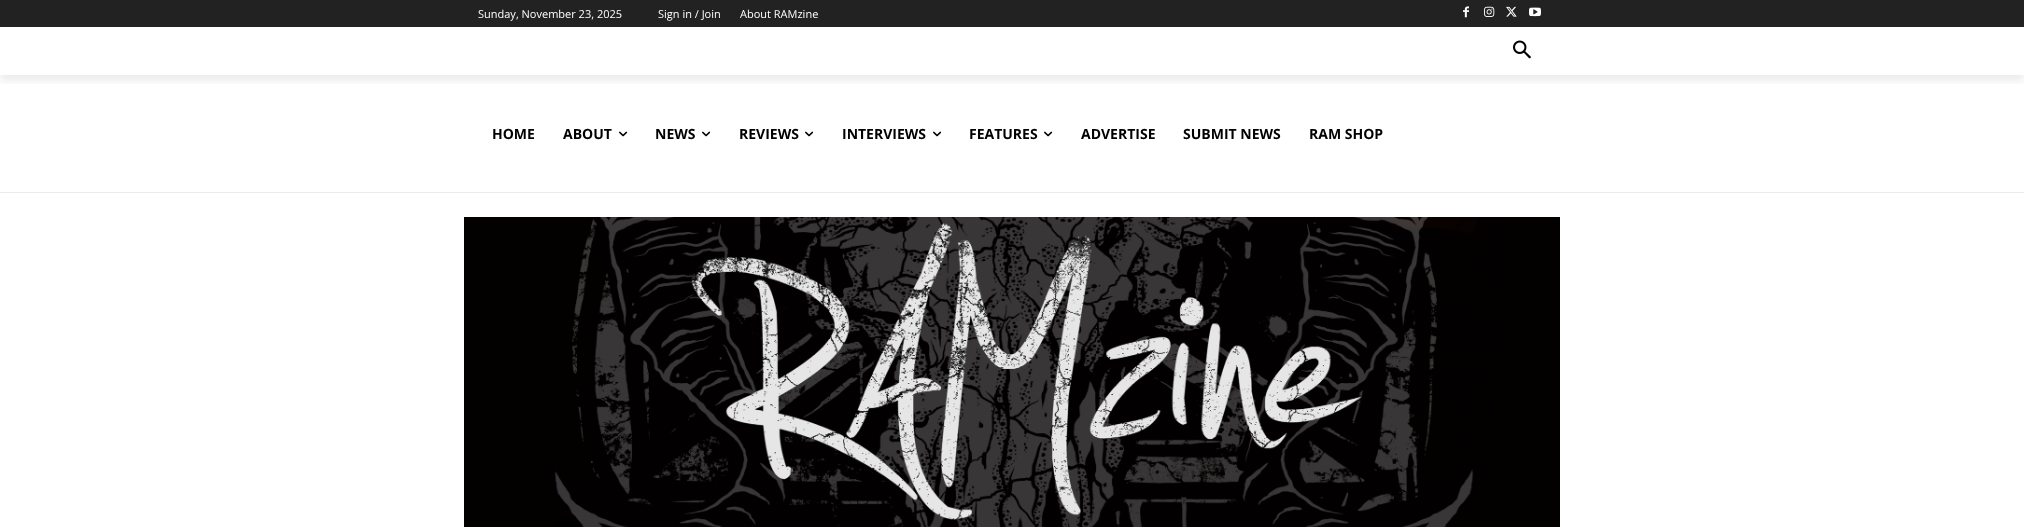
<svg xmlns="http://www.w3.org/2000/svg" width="2024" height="532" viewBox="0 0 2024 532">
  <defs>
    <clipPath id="clip1"><rect x="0" y="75" width="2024" height="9"/></clipPath>
    <filter id="blur1" x="-50%" y="-200%" width="200%" height="500%"><feGaussianBlur stdDeviation="4"/></filter>
  </defs>
  <rect width="100%" height="100%" fill="#ffffff"/>
  <rect x="0" y="0" width="2024" height="27" fill="#222222"/>
  <text x="478" y="18" font-family="Open Sans" font-size="11" fill="#ffffff">Sunday, November 23, 2025</text>
  <text x="658" y="18" font-family="Open Sans" font-size="11" fill="#ffffff">Sign in / Join</text>
  <text x="740" y="18" font-family="Open Sans" font-size="11" fill="#ffffff">About RAMzine</text>
  <image x="1463" y="6" width="6" height="12" href="img1.png"/>
  <image x="1484" y="6" width="11" height="11" href="img2.png"/>
  <image x="1506" y="6" width="11" height="11" href="img3.png"/>
  <image x="1529" y="7" width="12" height="10" href="img4.png"/>
  <g clip-path="url(#clip1)">
    <rect x="0" y="33" width="2024" height="48" fill="#000000" fill-opacity="0.08" filter="url(#blur1)"/>
  </g>
  <image x="1513" y="40" width="18" height="19" href="img5.png"/>
  <text x="492" y="139" font-family="Open Sans" font-size="14" font-weight="bold" fill="#000000">HOME</text>
  <text x="563" y="139" font-family="Open Sans" font-size="14" font-weight="bold" fill="#000000">ABOUT</text>
  <image x="619" y="131" width="9" height="6" href="img6.png"/>
  <text x="655" y="139" font-family="Open Sans" font-size="14" font-weight="bold" fill="#000000">NEWS</text>
  <image x="702" y="131" width="9" height="6" href="img6.png"/>
  <text x="739" y="139" font-family="Open Sans" font-size="14" font-weight="bold" fill="#000000">REVIEWS</text>
  <image x="805" y="131" width="9" height="6" href="img6.png"/>
  <text x="842" y="139" font-family="Open Sans" font-size="14" font-weight="bold" fill="#000000">INTERVIEWS</text>
  <image x="933" y="131" width="9" height="6" href="img6.png"/>
  <text x="969" y="139" font-family="Open Sans" font-size="14" font-weight="bold" fill="#000000">FEATURES</text>
  <image x="1044" y="131" width="9" height="6" href="img6.png"/>
  <text x="1081" y="139" font-family="Open Sans" font-size="14" font-weight="bold" fill="#000000">ADVERTISE</text>
  <text x="1183" y="139" font-family="Open Sans" font-size="14" font-weight="bold" fill="#000000">SUBMIT NEWS</text>
  <text x="1309" y="139" font-family="Open Sans" font-size="14" font-weight="bold" fill="#000000">RAM SHOP</text>
  <rect x="0" y="192" width="2024" height="1" fill="#ebebeb"/>
  <image x="464" y="217" width="1096" height="310" href="img7.png"/>
</svg>
